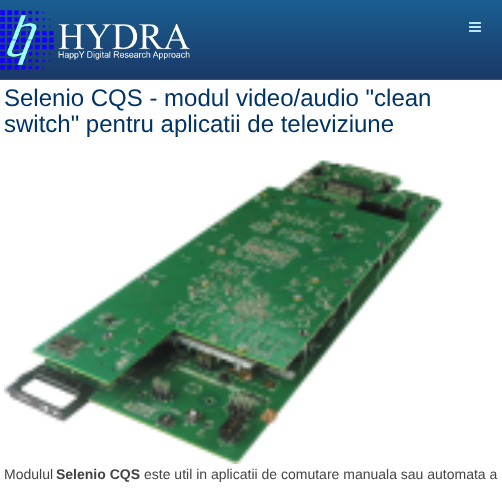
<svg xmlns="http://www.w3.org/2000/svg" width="502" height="494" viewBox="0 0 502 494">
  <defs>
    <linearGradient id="g1" gradientUnits="userSpaceOnUse" x1="251" y1="0" x2="251" y2="79"><stop offset="0" stop-color="#1a5f92"/><stop offset="1" stop-color="#1a3867"/></linearGradient>
  </defs>
  <rect width="100%" height="100%" fill="#ffffff"/>
  <rect x="0" y="0" width="502" height="79" fill="url(#g1)"/>
  <rect x="0" y="79" width="502" height="1" fill="#0067a2"/>
  <image x="0" y="10" width="190" height="60" href="img1.png"/>
  <image x="469" y="22" width="12" height="10" href="img2.png"/>
  <text x="4" y="106" font-family="Liberation Sans" font-size="24" fill="#003366">Selenio CQS - modul video/audio "clean</text>
  <text x="4" y="132" font-family="Liberation Sans" font-size="24" fill="#003366">switch" pentru aplicatii de televiziune</text>
  <image x="4" y="160" width="441" height="304" href="img3.png"/>
  <text x="4" y="479" font-family="Liberation Sans" font-size="14" fill="#444444">Modulul</text>
  <text x="56" y="479" font-family="Liberation Sans" font-size="14" font-weight="bold" fill="#444444">Selenio CQS</text>
  <text x="144" y="479" font-family="Liberation Sans" font-size="14" fill="#444444">este util in aplicatii de comutare manuala sau automata a</text>
</svg>
